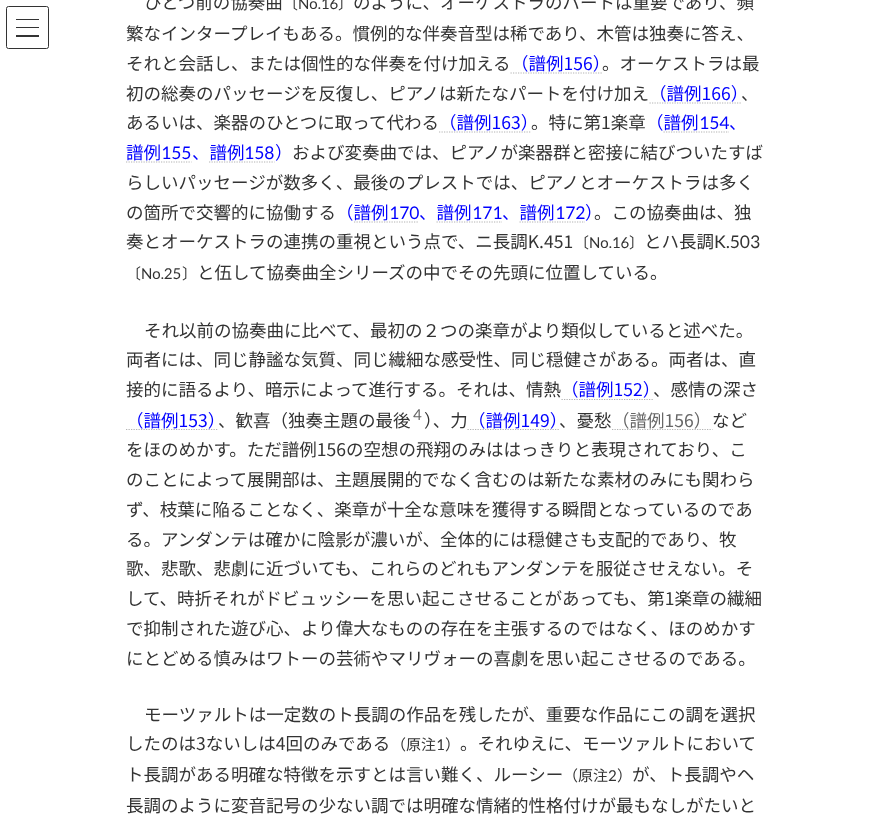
<svg xmlns="http://www.w3.org/2000/svg" width="890" height="815" viewBox="0 0 890 815">
  <rect width="100%" height="100%" fill="#ffffff"/>
  <rect x="16" y="19" width="23" height="1" fill="#333333"/>
  <rect x="16" y="27" width="23" height="1" fill="#333333"/>
  <rect x="16" y="35" width="23" height="2" fill="#333333"/>
  <rect x="6.5" y="6.5" width="42" height="42" rx="2" fill="none" stroke="#333333"/>
  <text x="144" y="9" font-family="Noto Sans JP" font-size="17.5" fill="#333333">ひとつ前の協奏曲</text>
  <text x="283" y="9" font-family="Noto Sans JP" font-size="15" fill="#333333">〔</text>
  <text x="298" y="9" font-family="Lato" font-size="15" fill="#333333">No.16</text>
  <text x="338" y="9" font-family="Noto Sans JP" font-size="15" fill="#333333">〕</text>
  <text x="353" y="9" font-family="Noto Sans JP" font-size="17.5" fill="#333333">のように、オーケストラのパートは重要であり、頻</text>
  <text x="126" y="40" font-family="Noto Sans JP" font-size="17.5" fill="#333333">繁なインタープレイもある。慣例的な伴奏音型は稀であり、木管は独奏に答え、</text>
  <text x="126" y="70" font-family="Noto Sans JP" font-size="17.5" fill="#333333">それと会話し、または個性的な伴奏を付け加える</text>
  <text x="511" y="70" font-family="Noto Sans JP" font-size="17.5" fill="#0000ff">（譜例156）</text>
  <path d="M510.5 73H602.5" fill="none" stroke="#b3b3b3" stroke-width="1.2" stroke-dasharray="1.25 1.25"/>
  <text x="602" y="70" font-family="Noto Sans JP" font-size="17.5" fill="#333333">。オーケストラは最</text>
  <text x="126" y="100" font-family="Noto Sans JP" font-size="17.5" fill="#333333">初の総奏のパッセージを反復し、ピアノは新たなパートを付け加え</text>
  <text x="649" y="100" font-family="Noto Sans JP" font-size="17.5" fill="#0000ff">（譜例166）</text>
  <path d="M649.5 103H741" fill="none" stroke="#b3b3b3" stroke-width="1.2" stroke-dasharray="1.25 1.25"/>
  <text x="741" y="100" font-family="Noto Sans JP" font-size="17.5" fill="#333333">、</text>
  <text x="126" y="129" font-family="Noto Sans JP" font-size="17.5" fill="#333333">あるいは、楽器のひとつに取って代わる</text>
  <text x="439" y="129" font-family="Noto Sans JP" font-size="17.5" fill="#0000ff">（譜例163）</text>
  <path d="M439 132H531" fill="none" stroke="#b3b3b3" stroke-width="1.2" stroke-dasharray="1.25 1.25"/>
  <text x="531" y="129" font-family="Noto Sans JP" font-size="17.5" fill="#333333">。特に第1楽章</text>
  <text x="646" y="129" font-family="Noto Sans JP" font-size="17.5" fill="#0000ff">（譜例</text>
  <text x="699" y="129" font-family="Lato" font-size="17.5" fill="#0000ff">154</text>
  <text x="729" y="129" font-family="Noto Sans JP" font-size="17.5" fill="#0000ff">、</text>
  <path d="M663.5 132H729" fill="none" stroke="#b3b3b3" stroke-width="1.2" stroke-dasharray="1.25 1.25"/>
  <text x="126" y="159" font-family="Noto Sans JP" font-size="17.5" fill="#0000ff">譜例</text>
  <text x="161" y="159" font-family="Lato" font-size="17.5" fill="#0000ff">155</text>
  <path d="M126 162H191.5" fill="none" stroke="#b3b3b3" stroke-width="1.2" stroke-dasharray="1.25 1.25"/>
  <text x="192" y="159" font-family="Noto Sans JP" font-size="17.5" fill="#0000ff">、譜例</text>
  <text x="244" y="159" font-family="Lato" font-size="17.5" fill="#0000ff">158</text>
  <path d="M209 162H274.5" fill="none" stroke="#b3b3b3" stroke-width="1.2" stroke-dasharray="1.25 1.25"/>
  <text x="275" y="159" font-family="Noto Sans JP" font-size="17.5" fill="#0000ff">）</text>
  <text x="292" y="159" font-family="Noto Sans JP" font-size="17.5" fill="#333333">および変奏曲では、ピアノが楽器群と密接に結びついたすば</text>
  <text x="126" y="189" font-family="Noto Sans JP" font-size="17.5" fill="#333333">らしいパッセージが数多く、最後のプレストでは、ピアノとオーケストラは多く</text>
  <text x="126" y="219" font-family="Noto Sans JP" font-size="17.5" fill="#333333">の箇所で交響的に協働する</text>
  <text x="336" y="219" font-family="Noto Sans JP" font-size="17.5" fill="#0000ff">（譜例</text>
  <text x="389" y="219" font-family="Lato" font-size="17.5" fill="#0000ff">170</text>
  <path d="M354 222H419" fill="none" stroke="#b3b3b3" stroke-width="1.2" stroke-dasharray="1.25 1.25"/>
  <text x="419" y="219" font-family="Noto Sans JP" font-size="17.5" fill="#0000ff">、譜例</text>
  <path d="M436.5 222H502" fill="none" stroke="#b3b3b3" stroke-width="1.2" stroke-dasharray="1.25 1.25"/>
  <text x="472" y="219" font-family="Lato" font-size="17.5" fill="#0000ff">171</text>
  <text x="502" y="219" font-family="Noto Sans JP" font-size="17.5" fill="#0000ff">、譜例</text>
  <path d="M519.5 222H585" fill="none" stroke="#b3b3b3" stroke-width="1.2" stroke-dasharray="1.25 1.25"/>
  <text x="555" y="219" font-family="Lato" font-size="17.5" fill="#0000ff">172</text>
  <text x="585" y="219" font-family="Noto Sans JP" font-size="17.5" fill="#0000ff">）</text>
  <text x="594" y="219" font-family="Noto Sans JP" font-size="17.5" fill="#333333">。この協奏曲は、独</text>
  <text x="126" y="248" font-family="Noto Sans JP" font-size="17.5" fill="#333333">奏とオーケストラの連携の重視という点で、ニ長調K.451</text>
  <text x="574" y="248" font-family="Noto Sans JP" font-size="15" fill="#333333">〔</text>
  <text x="589" y="248" font-family="Lato" font-size="15" fill="#333333">No.16</text>
  <text x="629" y="248" font-family="Noto Sans JP" font-size="15" fill="#333333">〕</text>
  <text x="644" y="248" font-family="Noto Sans JP" font-size="17.5" fill="#333333">とハ長調</text>
  <text x="714" y="248" font-family="Lato" font-size="17.5" fill="#333333">K.503</text>
  <text x="126" y="279" font-family="Noto Sans JP" font-size="15" fill="#333333">〔</text>
  <text x="141" y="279" font-family="Lato" font-size="15" fill="#333333">No.25</text>
  <text x="182" y="279" font-family="Noto Sans JP" font-size="15" fill="#333333">〕</text>
  <text x="197" y="279" font-family="Noto Sans JP" font-size="17.5" fill="#333333">と伍して協奏曲全シリーズの中でその先頭に位置している。</text>
  <text x="144" y="337" font-family="Noto Sans JP" font-size="17.5" fill="#333333">それ以前の協奏曲に比べて、最初の２つの楽章がより類似していると述べた。</text>
  <text x="126" y="366" font-family="Noto Sans JP" font-size="17.5" fill="#333333">両者には、同じ静謐な気質、同じ繊細な感受性、同じ穏健さがある。両者は、直</text>
  <text x="126" y="396" font-family="Noto Sans JP" font-size="17.5" fill="#333333">接的に語るより、暗示によって進行する。それは、情熱</text>
  <text x="561" y="396" font-family="Noto Sans JP" font-size="17.5" fill="#0000ff">（譜例152）</text>
  <path d="M561.5 399.5H653" fill="none" stroke="#b3b3b3" stroke-width="1.2" stroke-dasharray="1.25 1.25"/>
  <text x="653" y="396" font-family="Noto Sans JP" font-size="17.5" fill="#333333">、感情の深さ</text>
  <path d="M126 429.5H218" fill="none" stroke="#b3b3b3" stroke-width="1.2" stroke-dasharray="1.25 1.25"/>
  <text x="126" y="427" font-family="Noto Sans JP" font-size="17.5" fill="#0000ff">（譜例153）</text>
  <text x="218" y="427" font-family="Noto Sans JP" font-size="17.5" fill="#333333">、歓喜（独奏主題の最後</text>
  <text x="413" y="420" font-family="Lato" font-size="15" fill="#666666">4</text>
  <text x="424" y="427" font-family="Noto Sans JP" font-size="17.5" fill="#333333">）、力</text>
  <path d="M467.5 429.5H559.5" fill="none" stroke="#b3b3b3" stroke-width="1.2" stroke-dasharray="1.25 1.25"/>
  <text x="468" y="427" font-family="Noto Sans JP" font-size="17.5" fill="#0000ff">（譜例149）</text>
  <text x="559" y="427" font-family="Noto Sans JP" font-size="17.5" fill="#333333">、憂愁</text>
  <path d="M612 429.5H712.5" fill="none" stroke="#b3b3b3" stroke-width="1.2" stroke-dasharray="1.25 1.25"/>
  <text x="612" y="427" font-family="Noto Sans JP" font-size="17.5" fill="#666666">（譜例156）</text>
  <text x="712" y="427" font-family="Noto Sans JP" font-size="17.5" fill="#333333">など</text>
  <text x="126" y="456" font-family="Noto Sans JP" font-size="17.5" fill="#333333">をほのめかす。ただ譜例156の空想の飛翔のみははっきりと表現されており、こ</text>
  <text x="126" y="486" font-family="Noto Sans JP" font-size="17.5" fill="#333333">のことによって展開部は、主題展開的でなく含むのは新たな素材のみにも関わら</text>
  <text x="126" y="516" font-family="Noto Sans JP" font-size="17.5" fill="#333333">ず、枝葉に陥ることなく、楽章が十全な意味を獲得する瞬間となっているのであ</text>
  <text x="126" y="546" font-family="Noto Sans JP" font-size="17.5" fill="#333333">る。アンダンテは確かに陰影が濃いが、全体的には穏健さも支配的であり、牧</text>
  <text x="126" y="575" font-family="Noto Sans JP" font-size="17.5" fill="#333333">歌、悲歌、悲劇に近づいても、これらのどれもアンダンテを服従させえない。そ</text>
  <text x="126" y="605" font-family="Noto Sans JP" font-size="17.5" fill="#333333">して、時折それがドビュッシーを思い起こさせることがあっても、第1楽章の繊細</text>
  <text x="126" y="635" font-family="Noto Sans JP" font-size="17.5" fill="#333333">で抑制された遊び心、より偉大なものの存在を主張するのではなく、ほのめかす</text>
  <text x="126" y="665" font-family="Noto Sans JP" font-size="17.5" fill="#333333">にとどめる慎みはワトーの芸術やマリヴォーの喜劇を思い起こさせるのである。</text>
  <text x="144" y="721" font-family="Noto Sans JP" font-size="17.5" fill="#333333">モーツァルトは一定数のト長調の作品を残したが、重要な作品にこの調を選択</text>
  <text x="126" y="750" font-family="Noto Sans JP" font-size="17.5" fill="#333333">したのは3ないしは4回のみである</text>
  <text x="391" y="750" font-family="Noto Sans JP" font-size="15" fill="#333333">（原注</text>
  <text x="436" y="750" font-family="Lato" font-size="15" fill="#333333">1</text>
  <text x="445" y="750" font-family="Noto Sans JP" font-size="15" fill="#333333">）</text>
  <text x="460" y="750" font-family="Noto Sans JP" font-size="17.5" fill="#333333">。それゆえに、モーツァルトにおいて</text>
  <text x="126" y="781" font-family="Noto Sans JP" font-size="17.5" fill="#333333">ト長調がある明確な特徴を示すとは言い難く、ルーシー</text>
  <text x="563" y="781" font-family="Noto Sans JP" font-size="15" fill="#333333">（原注</text>
  <text x="608" y="781" font-family="Lato" font-size="15" fill="#333333">2</text>
  <text x="617" y="781" font-family="Noto Sans JP" font-size="15" fill="#333333">）</text>
  <text x="632" y="781" font-family="Noto Sans JP" font-size="17.5" fill="#333333">が、ト長調やヘ</text>
  <text x="126" y="812" font-family="Noto Sans JP" font-size="17.5" fill="#333333">長調のように変音記号の少ない調では明確な情緒的性格付けが最もなしがたいと</text>
</svg>
